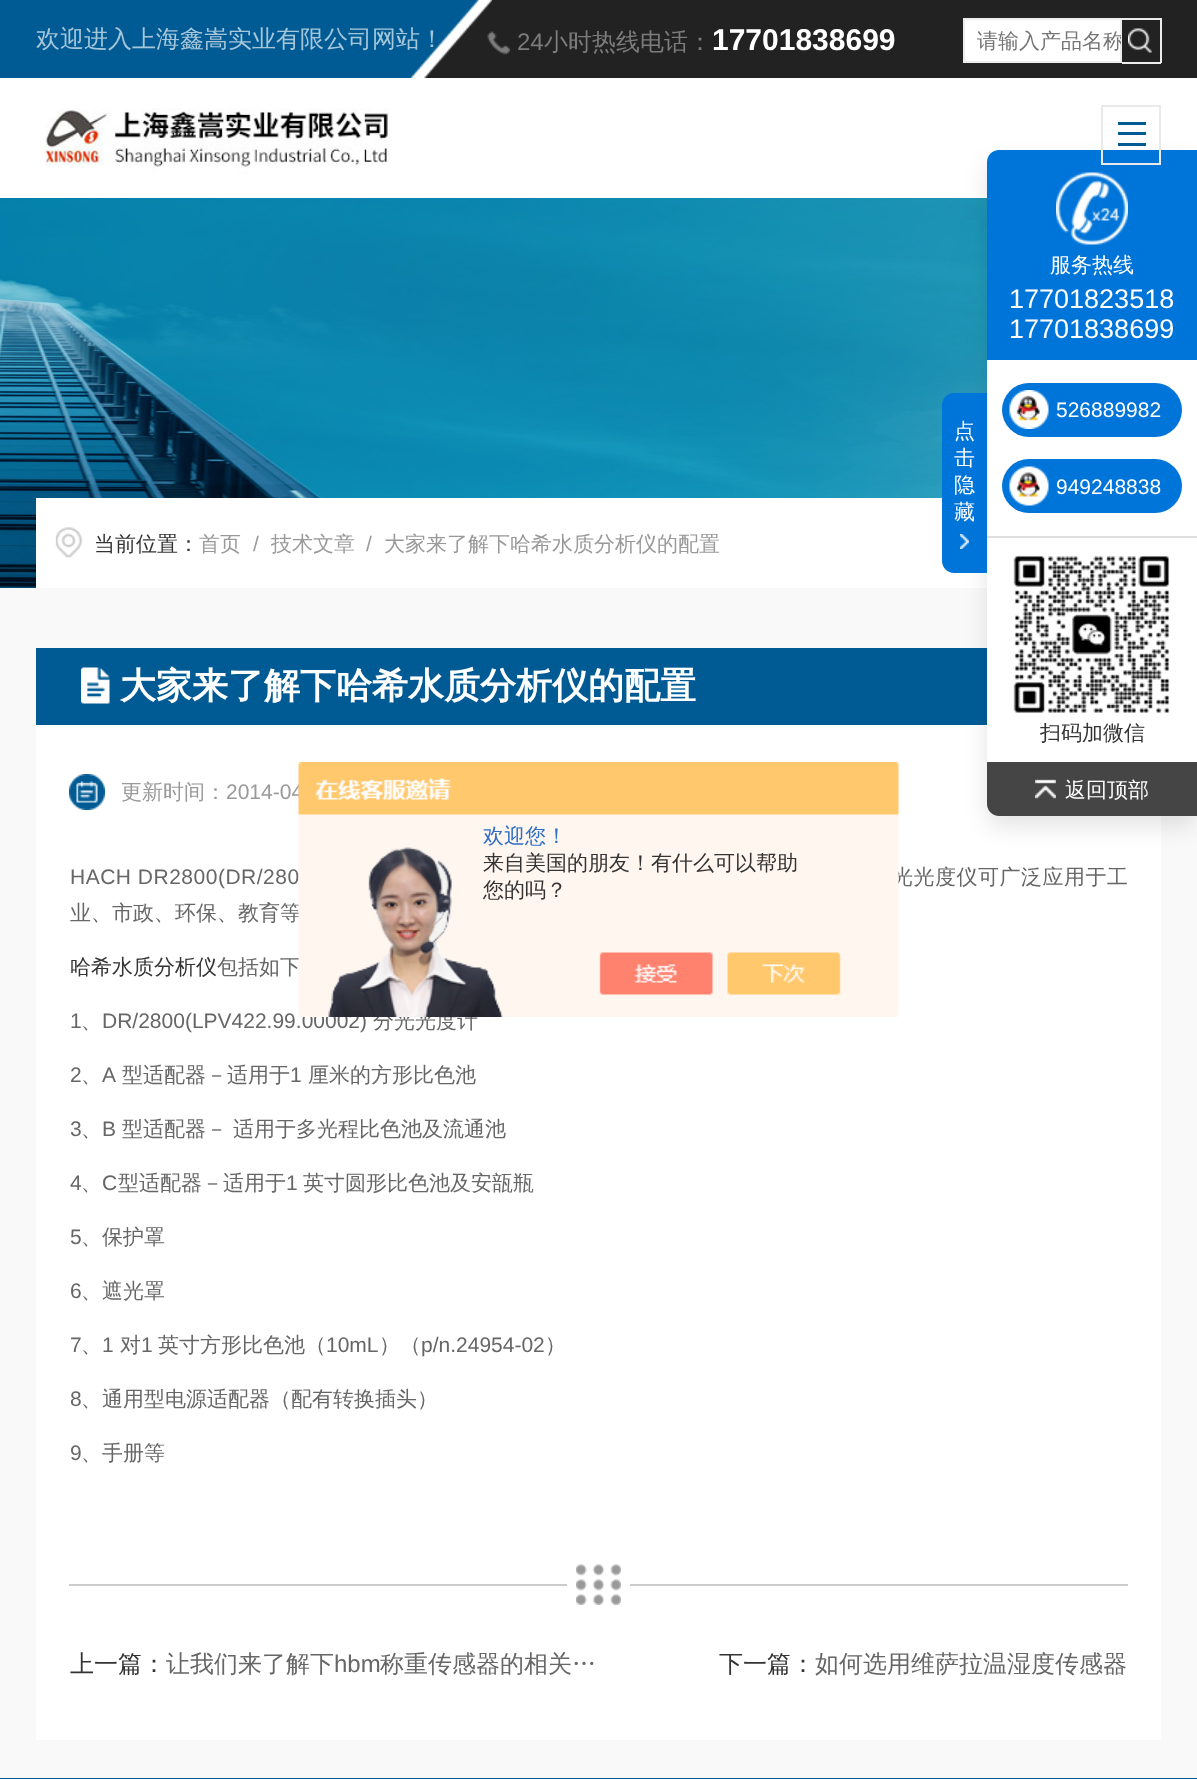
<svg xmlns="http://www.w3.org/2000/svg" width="1197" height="1779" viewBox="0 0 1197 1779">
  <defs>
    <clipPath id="clip1"><rect x="977" y="29" width="144" height="27"/></clipPath>
    <filter id="blur1" x="-50%" y="-200%" width="200%" height="500%"><feGaussianBlur stdDeviation="11"/></filter>
  </defs>
  <rect width="100%" height="100%" fill="#f9f9f9"/>
  <rect x="424" y="0" width="773" height="78" fill="#222222"/>
  <image x="0" y="0" width="492" height="78" href="img1.png"/>
  <text x="36" y="47" font-family="WenQuanYi Zen Hei" font-size="24" font-weight="500" fill="#a6c6da">欢迎进入上海鑫嵩实业有限公司网站！</text>
  <image x="487" y="31" width="23" height="24" href="img2.png"/>
  <text x="517" y="50" font-family="Liberation Sans" font-size="24" fill="#7c7c7c">24</text>
  <text x="544" y="50" font-family="WenQuanYi Zen Hei" font-size="24" font-weight="500" fill="#7c7c7c">小时热线电话：</text>
  <text x="712" y="50" font-family="Liberation Sans" font-size="30" font-weight="bold" fill="#ffffff">17701838699</text>
  <rect x="964" y="19" width="157" height="43" fill="#ffffff" stroke="#ededed" stroke-width="2"/>
  <g clip-path="url(#clip1)">
    <text x="977" y="48" font-family="WenQuanYi Zen Hei" font-size="21" font-weight="500" fill="#757575">请输入产品名称</text>
  </g>
  <image x="1128" y="28" width="24" height="25" href="img3.png"/>
  <rect x="1122" y="18" width="39" height="2" fill="#ededed"/>
  <rect x="1160" y="18" width="2" height="45" fill="#ededed"/>
  <rect x="1122" y="62" width="39" height="2" fill="#ededed"/>
  <rect x="0" y="78" width="1197" height="120" fill="#ffffff"/>
  <image x="45" y="108" width="345" height="66" href="img4.png"/>
  <image x="0" y="198" width="987" height="390" href="img5.png"/>
  <rect x="36" y="498" width="951" height="90" fill="#ffffff"/>
  <rect x="36" y="725" width="1125" height="1015" fill="#ffffff"/>
  <rect x="36" y="648" width="951" height="77" fill="#005b95"/>
  <rect x="987" y="161" width="210" height="666" rx="12" fill="#000000" fill-opacity="0.1" filter="url(#blur1)"/>
  <path d="M999 150H1197V360H987V162C987 155.5 992.5 150 999 150Z" fill="#0075d9"/>
  <rect x="1102" y="106" width="58" height="58" fill="none" stroke="#eaeaea" stroke-width="2"/>
  <rect x="1118" y="122" width="28" height="3" fill="#005b95"/>
  <rect x="1118" y="132" width="28" height="3" fill="#005b95"/>
  <rect x="1118" y="143" width="28" height="3" fill="#005b95"/>
  <image x="55" y="527" width="28" height="31" href="img6.png"/>
  <text x="94" y="551" font-family="WenQuanYi Zen Hei" font-size="21" font-weight="500" fill="#333333">当前位置：</text>
  <text x="199" y="551" font-family="WenQuanYi Zen Hei" font-size="21" font-weight="500" fill="#999999">首页</text>
  <text x="253" y="551" font-family="Liberation Sans" font-size="21" fill="#999999">/</text>
  <text x="271" y="551" font-family="WenQuanYi Zen Hei" font-size="21" font-weight="500" fill="#999999">技术文章</text>
  <text x="366" y="551" font-family="Liberation Sans" font-size="21" fill="#999999">/</text>
  <text x="384" y="551" font-family="WenQuanYi Zen Hei" font-size="21" font-weight="500" fill="#999999">大家来了解下哈希水质分析仪的配置</text>
  <image x="1056" y="172" width="72" height="73" href="img7.png"/>
  <text x="1050" y="272" font-family="WenQuanYi Zen Hei" font-size="21" font-weight="500" fill="#ffffff">服务热线</text>
  <text x="1009" y="308" font-family="Liberation Sans" font-size="27" fill="#ffffff">17701823518</text>
  <text x="1009" y="338" font-family="Liberation Sans" font-size="27" fill="#ffffff">17701838699</text>
  <path d="M954 393H987V573H954C947.5 573 942 567.5 942 561V405C942 398.5 947.5 393 954 393Z" fill="#0075d9"/>
  <text x="954" y="438" font-family="WenQuanYi Zen Hei" font-size="21" font-weight="500" fill="#ffffff">点</text>
  <text x="954" y="465" font-family="WenQuanYi Zen Hei" font-size="21" font-weight="500" fill="#ffffff">击</text>
  <text x="954" y="492" font-family="WenQuanYi Zen Hei" font-size="21" font-weight="500" fill="#ffffff">隐</text>
  <text x="954" y="519" font-family="WenQuanYi Zen Hei" font-size="21" font-weight="500" fill="#ffffff">藏</text>
  <image x="960" y="534" width="9" height="15" href="img8.png"/>
  <rect x="987" y="360" width="210" height="402" fill="#ffffff"/>
  <rect x="1002" y="383" width="180" height="54" rx="27" fill="#0075d9"/>
  <image x="1009" y="390" width="40" height="39" href="img9.png"/>
  <text x="1056" y="417" font-family="Liberation Sans" font-size="21" fill="#ffffff">526889982</text>
  <rect x="1002" y="459" width="180" height="54" rx="27" fill="#0075d9"/>
  <image x="1009" y="466" width="40" height="40" href="img10.png"/>
  <text x="1056" y="494" font-family="Liberation Sans" font-size="21" fill="#ffffff">949248838</text>
  <rect x="987" y="536" width="210" height="2" fill="#dfdfdf"/>
  <image x="1013" y="555" width="157" height="158" href="img11.png"/>
  <text x="1040" y="740" font-family="WenQuanYi Zen Hei" font-size="21" font-weight="500" fill="#333333">扫码加微信</text>
  <path d="M987 762H1197V816H999C992.5 816 987 810.5 987 804Z" fill="#454545"/>
  <image x="1035" y="779" width="21" height="20" href="img12.png"/>
  <text x="1065" y="797" font-family="WenQuanYi Zen Hei" font-size="21" font-weight="500" fill="#ffffff">返回顶部</text>
  <image x="81" y="667" width="29" height="37" href="img13.png"/>
  <text x="120" y="698" font-family="WenQuanYi Zen Hei" font-size="36" font-weight="bold" fill="#ffffff">大家来了解下哈希水质分析仪的配置</text>
  <image x="69" y="774" width="36" height="36" href="img14.png"/>
  <text x="121" y="799" font-family="WenQuanYi Zen Hei" font-size="21" font-weight="500" fill="#999999">更新时间：</text>
  <text x="226" y="799" font-family="Liberation Sans" font-size="21" fill="#999999">2014-04</text>
  <text x="70" y="884" font-family="Liberation Sans" font-size="21" letter-spacing="0.5" fill="#666666">HACH DR2800(DR/280</text>
  <text x="892" y="884" font-family="WenQuanYi Zen Hei" font-size="21" font-weight="500" letter-spacing="0.5" fill="#666666">光光度仪可广泛应用于工</text>
  <text x="70" y="920" font-family="WenQuanYi Zen Hei" font-size="21" font-weight="500" fill="#666666">业、市政、环保、教育等</text>
  <text x="70" y="974" font-family="WenQuanYi Zen Hei" font-size="21" font-weight="500" fill="#333333">哈希水质分析仪</text>
  <text x="217" y="974" font-family="WenQuanYi Zen Hei" font-size="21" font-weight="500" fill="#666666">包括如下</text>
  <text x="70" y="1028" font-family="Liberation Sans" font-size="21" fill="#666666">1</text>
  <text x="102" y="1028" font-family="Liberation Sans" font-size="21" fill="#666666">DR/2800(LPV422.99.00002)</text>
  <text x="373" y="1028" font-family="WenQuanYi Zen Hei" font-size="21" font-weight="500" fill="#666666">分光光度计</text>
  <text x="81" y="1028" font-family="WenQuanYi Zen Hei" font-size="21" font-weight="500" fill="#666666">、</text>
  <text x="70" y="1082" font-family="Liberation Sans" font-size="21" fill="#666666">2</text>
  <text x="102" y="1082" font-family="Liberation Sans" font-size="21" fill="#666666">A</text>
  <text x="122" y="1082" font-family="WenQuanYi Zen Hei" font-size="21" font-weight="500" fill="#666666">型适配器－适用于</text>
  <text x="290" y="1082" font-family="Liberation Sans" font-size="21" fill="#666666">1</text>
  <text x="308" y="1082" font-family="WenQuanYi Zen Hei" font-size="21" font-weight="500" fill="#666666">厘米的方形比色池</text>
  <text x="81" y="1082" font-family="WenQuanYi Zen Hei" font-size="21" font-weight="500" fill="#666666">、</text>
  <text x="70" y="1136" font-family="Liberation Sans" font-size="21" fill="#666666">3</text>
  <text x="102" y="1136" font-family="Liberation Sans" font-size="21" fill="#666666">B</text>
  <text x="122" y="1136" font-family="WenQuanYi Zen Hei" font-size="21" font-weight="500" fill="#666666">型适配器－</text>
  <text x="233" y="1136" font-family="WenQuanYi Zen Hei" font-size="21" font-weight="500" fill="#666666">适用于多光程比色池及流通池</text>
  <text x="81" y="1136" font-family="WenQuanYi Zen Hei" font-size="21" font-weight="500" fill="#666666">、</text>
  <text x="70" y="1190" font-family="Liberation Sans" font-size="21" fill="#666666">4</text>
  <text x="102" y="1190" font-family="Liberation Sans" font-size="21" fill="#666666">C</text>
  <text x="118" y="1190" font-family="WenQuanYi Zen Hei" font-size="21" font-weight="500" fill="#666666">型适配器－适用于</text>
  <text x="286" y="1190" font-family="Liberation Sans" font-size="21" fill="#666666">1</text>
  <text x="303" y="1190" font-family="WenQuanYi Zen Hei" font-size="21" font-weight="500" fill="#666666">英寸圆形比色池及安瓿瓶</text>
  <text x="81" y="1190" font-family="WenQuanYi Zen Hei" font-size="21" font-weight="500" fill="#666666">、</text>
  <text x="70" y="1244" font-family="Liberation Sans" font-size="21" fill="#666666">5</text>
  <text x="81" y="1244" font-family="WenQuanYi Zen Hei" font-size="21" font-weight="500" fill="#666666">、保护罩</text>
  <text x="70" y="1298" font-family="Liberation Sans" font-size="21" fill="#666666">6</text>
  <text x="81" y="1298" font-family="WenQuanYi Zen Hei" font-size="21" font-weight="500" fill="#666666">、遮光罩</text>
  <text x="70" y="1352" font-family="Liberation Sans" font-size="21" fill="#666666">7</text>
  <text x="81" y="1352" font-family="WenQuanYi Zen Hei" font-size="21" font-weight="500" fill="#666666">、</text>
  <text x="102" y="1352" font-family="Liberation Sans" font-size="21" fill="#666666">1</text>
  <text x="120" y="1352" font-family="WenQuanYi Zen Hei" font-size="21" font-weight="500" fill="#666666">对</text>
  <text x="141" y="1352" font-family="Liberation Sans" font-size="21" fill="#666666">1</text>
  <text x="158" y="1352" font-family="WenQuanYi Zen Hei" font-size="21" font-weight="500" fill="#666666">英寸方形比色池（</text>
  <text x="326" y="1352" font-family="Liberation Sans" font-size="21" fill="#666666">10mL</text>
  <text x="379" y="1352" font-family="WenQuanYi Zen Hei" font-size="21" font-weight="500" fill="#666666">）（</text>
  <text x="421" y="1352" font-family="Liberation Sans" font-size="21" fill="#666666">p/n.24954-02</text>
  <text x="545" y="1352" font-family="WenQuanYi Zen Hei" font-size="21" font-weight="500" fill="#666666">）</text>
  <text x="70" y="1406" font-family="Liberation Sans" font-size="21" fill="#666666">8</text>
  <text x="81" y="1406" font-family="WenQuanYi Zen Hei" font-size="21" font-weight="500" fill="#666666">、通用型电源适配器（配有转换插头）</text>
  <text x="70" y="1460" font-family="Liberation Sans" font-size="21" fill="#666666">9</text>
  <text x="81" y="1460" font-family="WenQuanYi Zen Hei" font-size="21" font-weight="500" fill="#666666">、手册等</text>
  <rect x="69" y="1584" width="498" height="2" fill="#cccccc"/>
  <image x="576" y="1564" width="45" height="41" href="img15.png"/>
  <rect x="630" y="1584" width="498" height="2" fill="#cccccc"/>
  <text x="70" y="1672" font-family="WenQuanYi Zen Hei" font-size="24" font-weight="500" fill="#333333">上一篇：</text>
  <text x="166" y="1672" font-family="WenQuanYi Zen Hei" font-size="24" font-weight="500" fill="#666666">让我们来了解下</text>
  <text x="334" y="1672" font-family="Liberation Sans" font-size="24" fill="#666666">hbm</text>
  <text x="380" y="1672" font-family="WenQuanYi Zen Hei" font-size="24" font-weight="500" fill="#666666">称重传感器的相关…</text>
  <text x="719" y="1672" font-family="WenQuanYi Zen Hei" font-size="24" font-weight="500" fill="#333333">下一篇：</text>
  <text x="815" y="1672" font-family="WenQuanYi Zen Hei" font-size="24" font-weight="500" fill="#666666">如何选用维萨拉温湿度传感器</text>
  <image x="298" y="762" width="601" height="255" href="img16.png"/>
  <text x="483" y="843" font-family="WenQuanYi Zen Hei" font-size="21" font-weight="500" fill="#2e6ec6">欢迎您！</text>
  <text x="483" y="870" font-family="WenQuanYi Zen Hei" font-size="21" font-weight="500" fill="#333333">来自美国的朋友！有什么可以帮助</text>
  <text x="483" y="897" font-family="WenQuanYi Zen Hei" font-size="21" font-weight="500" fill="#333333">您的吗？</text>
  <rect x="0" y="1778" width="1197" height="1" fill="#005b95"/>
</svg>
